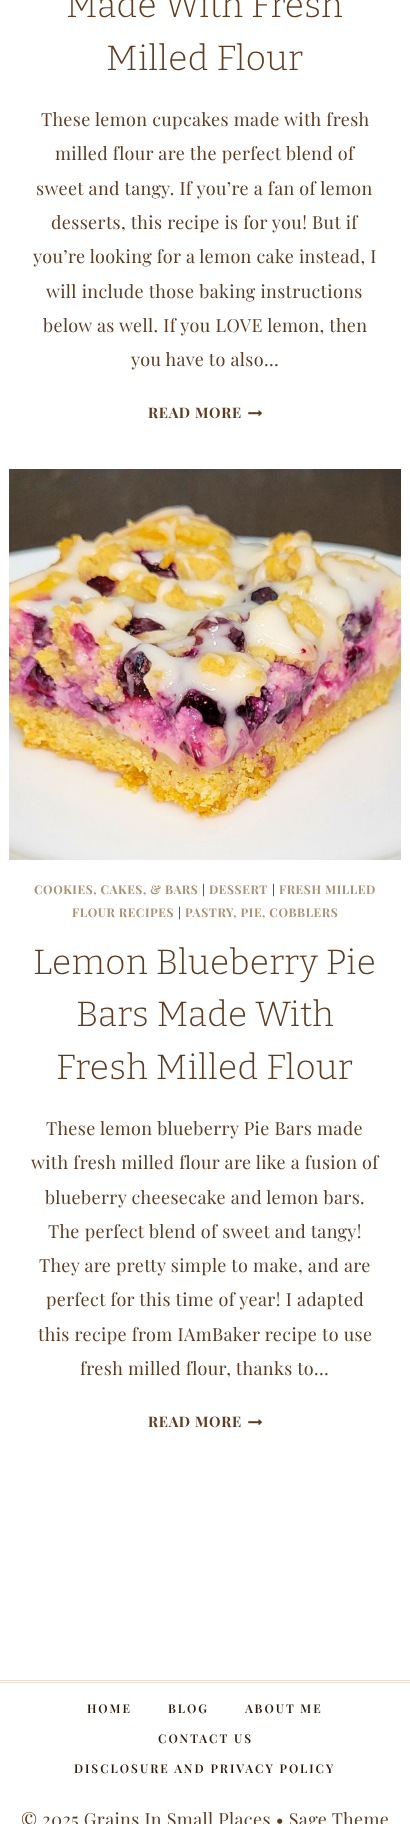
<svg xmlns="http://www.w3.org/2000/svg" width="410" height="1824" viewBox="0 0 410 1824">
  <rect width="100%" height="100%" fill="#ffffff"/>
  <text x="66" y="17" font-family="Bitter" font-size="35" font-weight="300" letter-spacing="0.35" fill="#5e3c21">Made With Fresh</text>
  <text x="106" y="70" font-family="Bitter" font-size="35" font-weight="300" letter-spacing="0.35" fill="#5e3c21">Milled Flour</text>
  <text x="41" y="126" font-family="Playfair Display" font-size="18" letter-spacing="0.35" fill="#5e3c21">These lemon cupcakes made with fresh</text>
  <text x="55" y="160" font-family="Playfair Display" font-size="18" letter-spacing="0.35" fill="#5e3c21">milled flour are the perfect blend of</text>
  <text x="36" y="195" font-family="Playfair Display" font-size="18" letter-spacing="0.35" fill="#5e3c21">sweet and tangy. If you’re a fan of lemon</text>
  <text x="51" y="229" font-family="Playfair Display" font-size="18" letter-spacing="0.35" fill="#5e3c21">desserts, this recipe is for you! But if</text>
  <text x="33" y="263" font-family="Playfair Display" font-size="18" letter-spacing="0.35" fill="#5e3c21">you’re looking for a lemon cake instead, I</text>
  <text x="46" y="298" font-family="Playfair Display" font-size="18" letter-spacing="0.35" fill="#5e3c21">will include those baking instructions</text>
  <text x="43" y="332" font-family="Playfair Display" font-size="18" letter-spacing="0.35" fill="#5e3c21">below as well. If you LOVE lemon, then</text>
  <text x="131" y="366" font-family="Playfair Display" font-size="18" letter-spacing="0.35" fill="#5e3c21">you have to also…</text>
  <text x="148" y="418" font-family="Playfair Display" font-size="14.5" font-weight="bold" letter-spacing="0.75" fill="#5e3c21">READ MORE</text>
  <image x="248" y="410" width="14" height="7" href="img1.png"/>
  <image x="9" y="469" width="392" height="391" href="img2.png"/>
  <text x="34" y="894" font-family="Playfair Display" font-size="12" font-weight="bold" letter-spacing="0.6" fill="#a99176">COOKIES, CAKES, &amp; BARS</text>
  <text x="202" y="894" font-family="Playfair Display" font-size="12" font-weight="600" letter-spacing="0.6" fill="#5e3c21">|</text>
  <text x="209" y="894" font-family="Playfair Display" font-size="12" font-weight="bold" letter-spacing="0.6" fill="#a99176">DESSERT</text>
  <text x="272" y="894" font-family="Playfair Display" font-size="12" font-weight="600" letter-spacing="0.6" fill="#5e3c21">|</text>
  <text x="279" y="894" font-family="Playfair Display" font-size="12" font-weight="bold" letter-spacing="0.6" fill="#a99176">FRESH MILLED</text>
  <text x="72" y="917" font-family="Playfair Display" font-size="12" font-weight="bold" letter-spacing="0.6" fill="#a99176">FLOUR RECIPES</text>
  <text x="178" y="917" font-family="Playfair Display" font-size="12" font-weight="600" letter-spacing="0.6" fill="#5e3c21">|</text>
  <text x="185" y="917" font-family="Playfair Display" font-size="12" font-weight="bold" letter-spacing="0.6" fill="#a99176">PASTRY, PIE, COBBLERS</text>
  <text x="33" y="974" font-family="Bitter" font-size="35" font-weight="300" letter-spacing="0.35" fill="#5e3c21">Lemon Blueberry Pie</text>
  <text x="76" y="1026" font-family="Bitter" font-size="35" font-weight="300" letter-spacing="0.35" fill="#5e3c21">Bars Made With</text>
  <text x="56" y="1079" font-family="Bitter" font-size="35" font-weight="300" letter-spacing="0.35" fill="#5e3c21">Fresh Milled Flour</text>
  <text x="46" y="1135" font-family="Playfair Display" font-size="18" letter-spacing="0.35" fill="#5e3c21">These lemon blueberry Pie Bars made</text>
  <text x="31" y="1169" font-family="Playfair Display" font-size="18" letter-spacing="0.35" fill="#5e3c21">with fresh milled flour are like a fusion of</text>
  <text x="45" y="1204" font-family="Playfair Display" font-size="18" letter-spacing="0.35" fill="#5e3c21">blueberry cheesecake and lemon bars.</text>
  <text x="48" y="1238" font-family="Playfair Display" font-size="18" letter-spacing="0.35" fill="#5e3c21">The perfect blend of sweet and tangy!</text>
  <text x="39" y="1272" font-family="Playfair Display" font-size="18" letter-spacing="0.35" fill="#5e3c21">They are pretty simple to make, and are</text>
  <text x="46" y="1306" font-family="Playfair Display" font-size="18" letter-spacing="0.35" fill="#5e3c21">perfect for this time of year! I adapted</text>
  <text x="38" y="1341" font-family="Playfair Display" font-size="18" letter-spacing="0.35" fill="#5e3c21">this recipe from IAmBaker recipe to use</text>
  <text x="80" y="1375" font-family="Playfair Display" font-size="18" letter-spacing="0.35" fill="#5e3c21">fresh milled flour, thanks to…</text>
  <text x="148" y="1427" font-family="Playfair Display" font-size="14.5" font-weight="bold" letter-spacing="0.75" fill="#5e3c21">READ MORE</text>
  <image x="248" y="1419" width="14" height="7" href="img1.png"/>
  <rect x="0" y="1680" width="410" height="1" fill="#e8ded4"/>
  <rect x="0" y="1682" width="410" height="1" fill="#e8ded4"/>
  <text x="87" y="1713" font-family="Playfair Display" font-size="12" font-weight="600" letter-spacing="2" fill="#2c1809">HOME</text>
  <text x="168" y="1713" font-family="Playfair Display" font-size="12" font-weight="600" letter-spacing="2" fill="#2c1809">BLOG</text>
  <text x="245" y="1713" font-family="Playfair Display" font-size="12" font-weight="600" letter-spacing="2" fill="#2c1809">ABOUT ME</text>
  <text x="158" y="1743" font-family="Playfair Display" font-size="12" font-weight="600" letter-spacing="2" fill="#2c1809">CONTACT US</text>
  <text x="74" y="1773" font-family="Playfair Display" font-size="12" font-weight="600" letter-spacing="2" fill="#2c1809">DISCLOSURE AND PRIVACY POLICY</text>
  <text x="21" y="1826" font-family="Playfair Display" font-size="18" letter-spacing="0.35" fill="#5e3c21">© 2025 Grains In Small Places • Sage Theme</text>
</svg>
